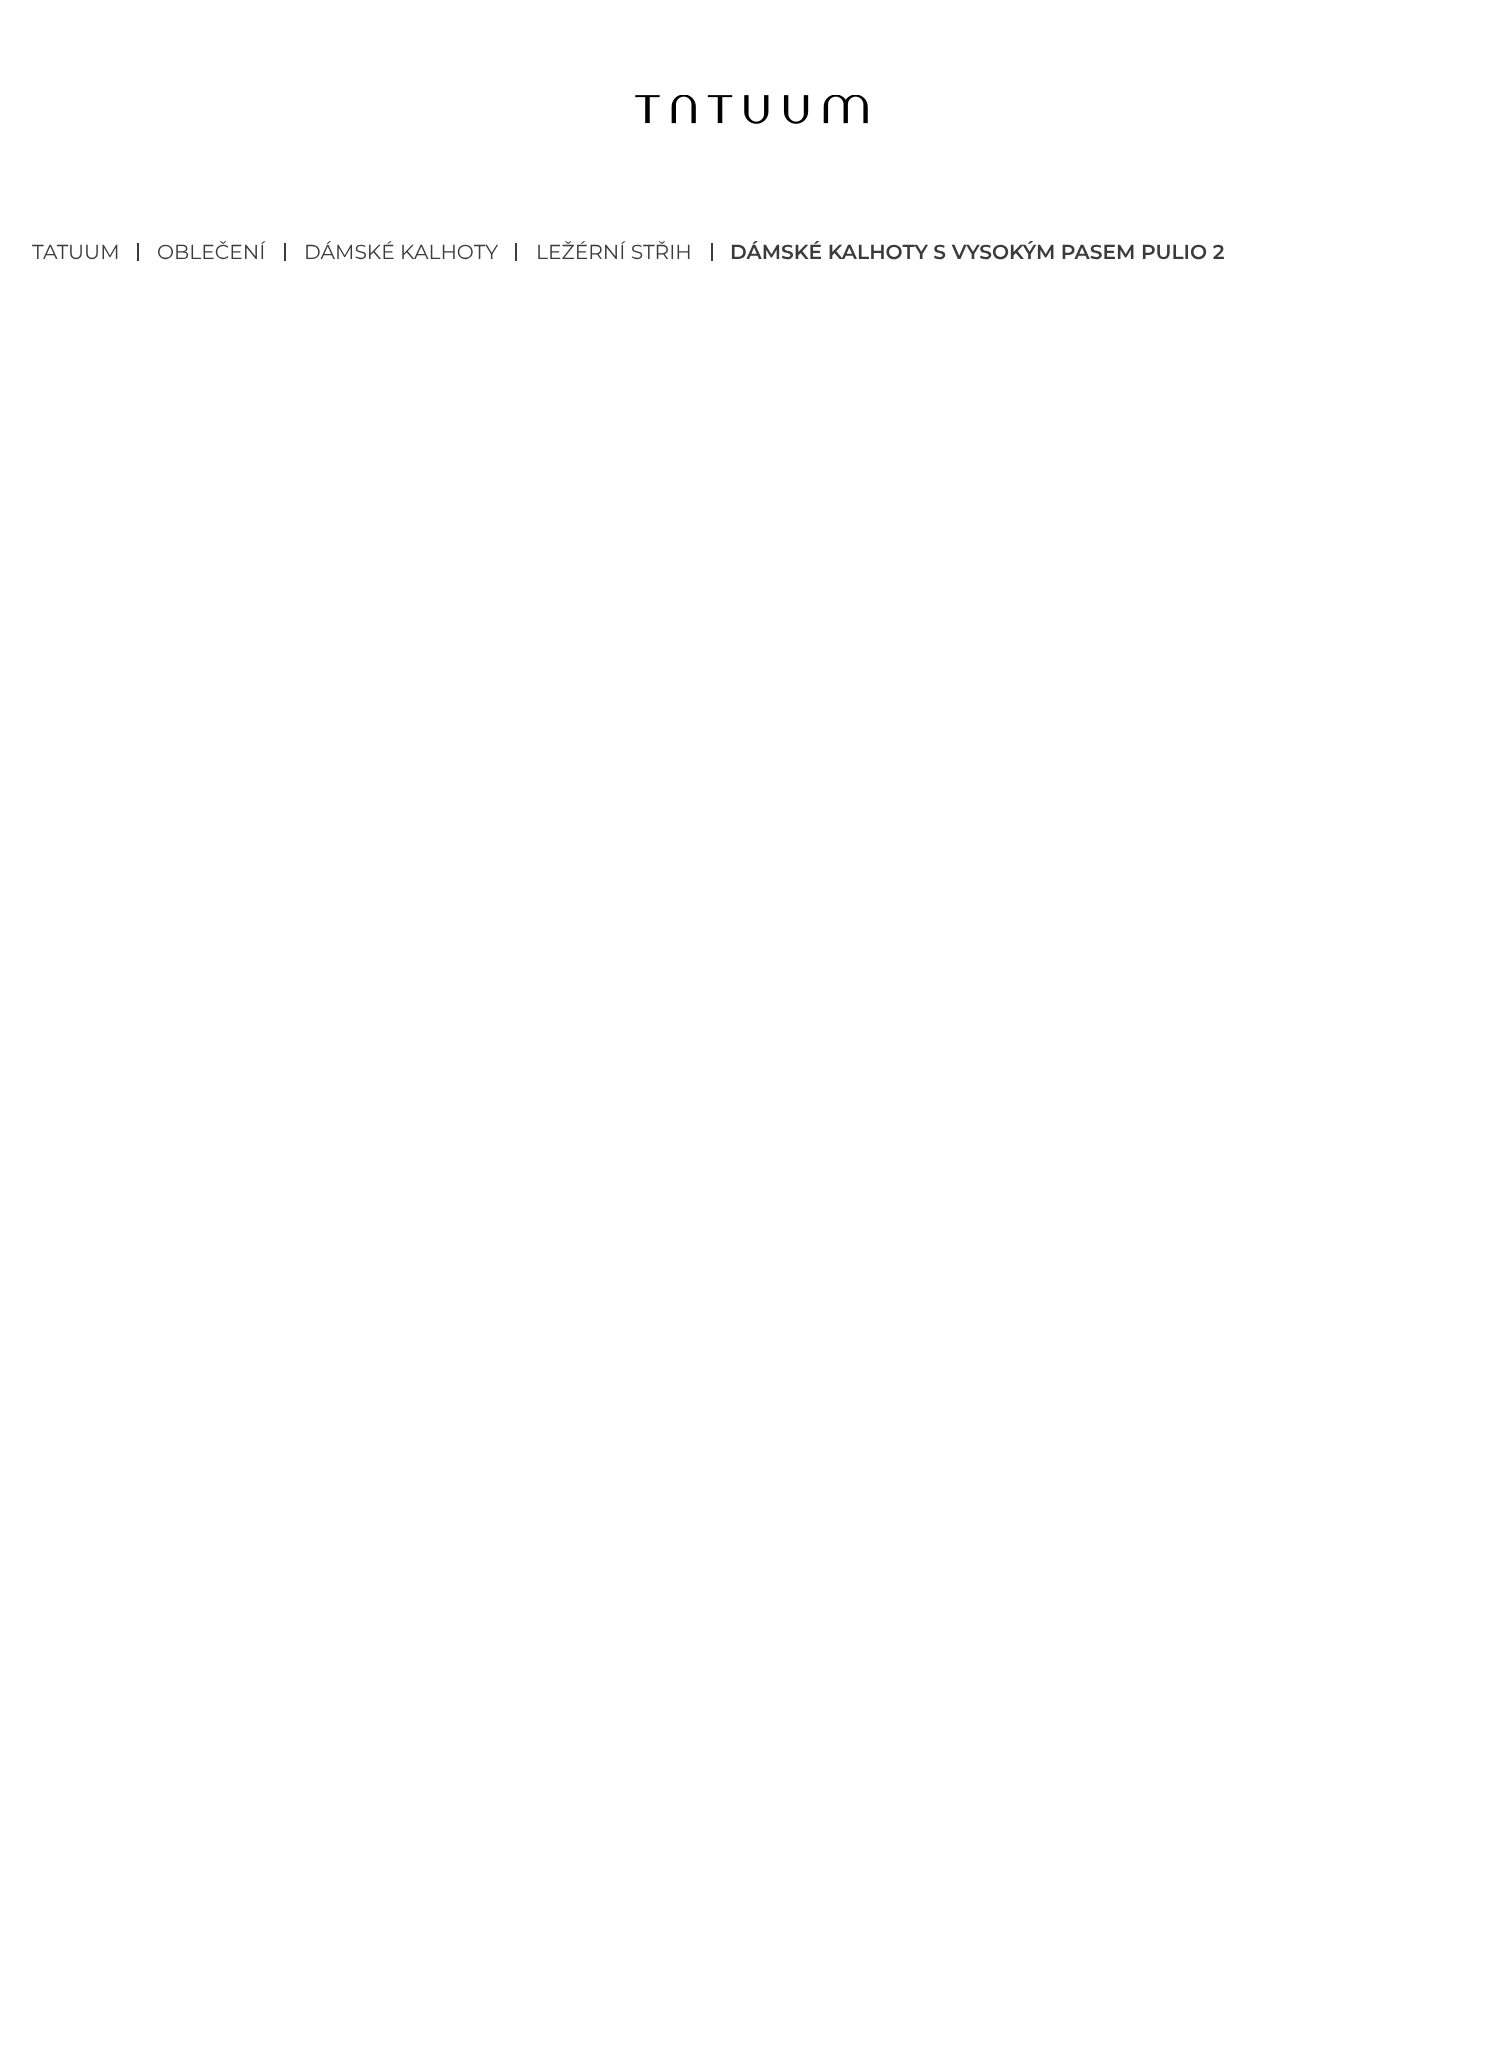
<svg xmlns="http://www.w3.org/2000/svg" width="1499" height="2057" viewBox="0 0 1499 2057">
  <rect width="100%" height="100%" fill="#ffffff"/>
  <image x="635" y="95" width="233" height="29" href="img1.png"/>
  <text x="32" y="259" font-family="Montserrat" font-size="20.25" font-weight="100" fill="#3b3b3b">TATUUM</text>
  <rect x="137" y="243" width="2" height="18" fill="#3b3b3b"/>
  <text x="157" y="259" font-family="Montserrat" font-size="20.25" font-weight="100" fill="#3b3b3b">OBLEČENÍ</text>
  <rect x="284" y="243" width="2" height="18" fill="#3b3b3b"/>
  <text x="304" y="259" font-family="Montserrat" font-size="20.25" font-weight="100" fill="#3b3b3b">DÁMSKÉ KALHOTY</text>
  <rect x="515" y="243" width="2" height="18" fill="#3b3b3b"/>
  <text x="536" y="259" font-family="Montserrat" font-size="20.25" font-weight="100" fill="#3b3b3b">LEŽÉRNÍ STŘIH</text>
  <rect x="711" y="243" width="2" height="18" fill="#3b3b3b"/>
  <text x="730" y="259" font-family="Montserrat" font-size="20.25" font-weight="600" fill="#3b3b3b">DÁMSKÉ KALHOTY S VYSOKÝM PASEM PULIO 2</text>
</svg>
